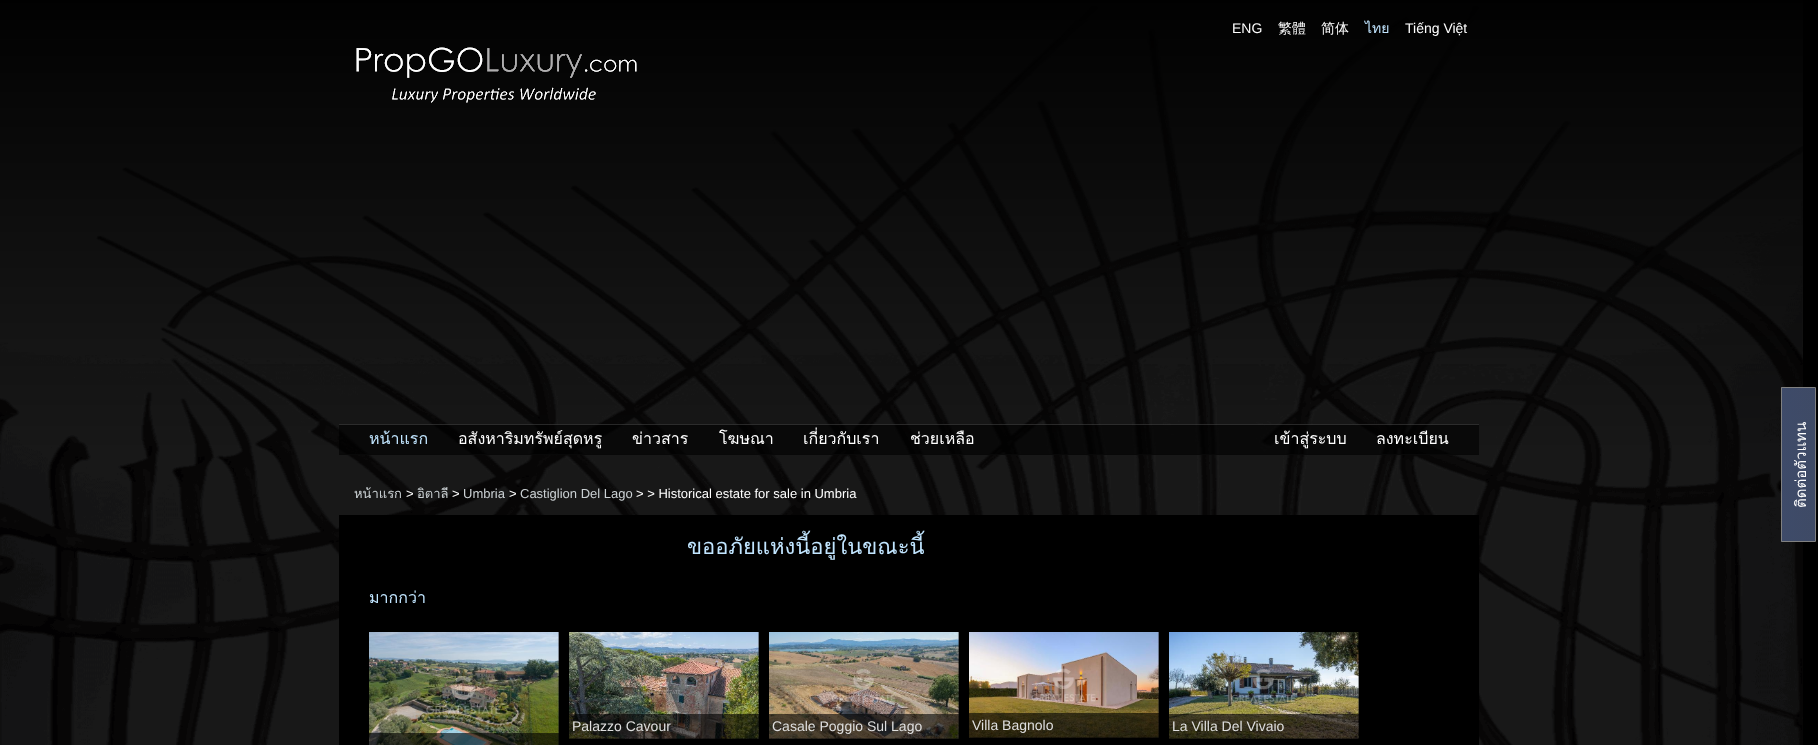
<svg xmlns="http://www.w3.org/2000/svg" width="1818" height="745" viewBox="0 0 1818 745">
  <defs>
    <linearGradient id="g1" gradientUnits="userSpaceOnUse" x1="1782" y1="465" x2="1815" y2="465"><stop offset="0" stop-color="#3f4c6b" stop-opacity="0.85"/><stop offset="1" stop-color="#404c68" stop-opacity="0.85"/></linearGradient>
  </defs>
  <rect width="100%" height="100%" fill="#000000"/>
  <image x="0" y="0" width="1803" height="745" href="img1.png"/>
  <text x="1232" y="33" font-family="Liberation Sans" font-size="14" fill="#ffffff">ENG</text>
  <text x="1278" y="33" font-family="WenQuanYi Zen Hei" font-size="14" font-weight="500" fill="#ffffff">繁體</text>
  <text x="1321" y="33" font-family="WenQuanYi Zen Hei" font-size="14" font-weight="500" fill="#ffffff">简体</text>
  <text x="1365" y="33" font-family="Loma" font-size="14" fill="#c1e5ff">ไทย</text>
  <text x="1405" y="33" font-family="Liberation Sans" font-size="14" fill="#ffffff">Tiếng Việt</text>
  <image x="356" y="47" width="281" height="56" href="img2.png"/>
  <rect x="339" y="424" width="1140" height="30" fill="#000000" fill-opacity="0.6"/>
  <rect x="339" y="424" width="1140" height="1" fill="#ffffff" fill-opacity="0.15"/>
  <rect x="339" y="454" width="1140" height="1" fill="#080808"/>
  <text x="369" y="444" font-family="Loma" font-size="16" fill="#c1e5ff">หน้าแรก</text>
  <text x="458" y="444" font-family="Loma" font-size="16" fill="#ffffff">อสังหาริมทรัพย์สุดหรู</text>
  <text x="632" y="444" font-family="Loma" font-size="16" fill="#ffffff">ข่าวสาร</text>
  <text x="719" y="444" font-family="Loma" font-size="16" fill="#ffffff">โฆษณา</text>
  <text x="803" y="444" font-family="Loma" font-size="16" fill="#ffffff">เกี่ยวกับเรา</text>
  <text x="910" y="444" font-family="Loma" font-size="16" fill="#ffffff">ช่วยเหลือ</text>
  <text x="1274" y="444" font-family="Loma" font-size="16" fill="#ffffff">เข้าสู่ระบบ</text>
  <text x="1376" y="444" font-family="Loma" font-size="16" fill="#ffffff">ลงทะเบียน</text>
  <rect x="1782" y="388" width="33" height="153" fill="url(#g1)"/>
  <rect x="1782" y="388" width="33" height="153" fill="url(#g1)"/>
  <path d="M1781.5 541.5V387.5H1815.5V541.5Z" fill="none" stroke="#808080"/>
  <text x="1806" y="508" transform="rotate(-90 1806 508)" font-family="Loma" font-size="15" fill="#ffffff">ติดต่อตัวแทน</text>
  <rect x="339" y="515" width="1140" height="230" fill="#000000"/>
  <text x="687" y="554" font-family="Loma" font-size="22" fill="#c1e5ff">ขออภัยแห่งนี้อยู่ในขณะนี้</text>
  <text x="369" y="603" font-family="Loma" font-size="16" fill="#c1e5ff">มากกว่า</text>
  <image x="369" y="632" width="190" height="113" href="img3.png"/>
  <rect x="369" y="733" width="190" height="12" fill="#000000" fill-opacity="0.6"/>
  <image x="569" y="632" width="190" height="107" href="img4.png"/>
  <rect x="569" y="714" width="190" height="25" fill="#000000" fill-opacity="0.6"/>
  <text x="572" y="731" font-family="Liberation Sans" font-size="14" fill="#dfdfdf">Palazzo Cavour</text>
  <image x="769" y="632" width="190" height="107" href="img5.png"/>
  <rect x="769" y="714" width="190" height="25" fill="#000000" fill-opacity="0.6"/>
  <text x="772" y="731" font-family="Liberation Sans" font-size="14" fill="#dfdfdf">Casale Poggio Sul Lago</text>
  <image x="969" y="632" width="190" height="106" href="img6.png"/>
  <rect x="969" y="713" width="190" height="25" fill="#000000" fill-opacity="0.6"/>
  <text x="972" y="730" font-family="Liberation Sans" font-size="14" fill="#dfdfdf">Villa Bagnolo</text>
  <image x="1169" y="632" width="190" height="107" href="img7.png"/>
  <rect x="1169" y="714" width="190" height="25" fill="#000000" fill-opacity="0.6"/>
  <text x="1172" y="731" font-family="Liberation Sans" font-size="14" fill="#dfdfdf">La Villa Del Vivaio</text>
  <text x="354" y="498" font-family="Loma" font-size="13" fill="#cbd1d4">หน้าแรก</text>
  <text x="406" y="498" font-family="Liberation Sans" font-size="13" fill="#ffffff">&gt;</text>
  <text x="417" y="498" font-family="Loma" font-size="13" fill="#cbd1d4">อิตาลี</text>
  <text x="452" y="498" font-family="Liberation Sans" font-size="13" fill="#ffffff">&gt;</text>
  <text x="463" y="498" font-family="Liberation Sans" font-size="13" fill="#cbd1d4">Umbria</text>
  <text x="509" y="498" font-family="Liberation Sans" font-size="13" fill="#ffffff">&gt;</text>
  <text x="520" y="498" font-family="Liberation Sans" font-size="13" fill="#cbd1d4">Castiglion Del Lago</text>
  <text x="636" y="498" font-family="Liberation Sans" font-size="13" fill="#ffffff">&gt; &gt; Historical estate for sale in Umbria</text>
</svg>
